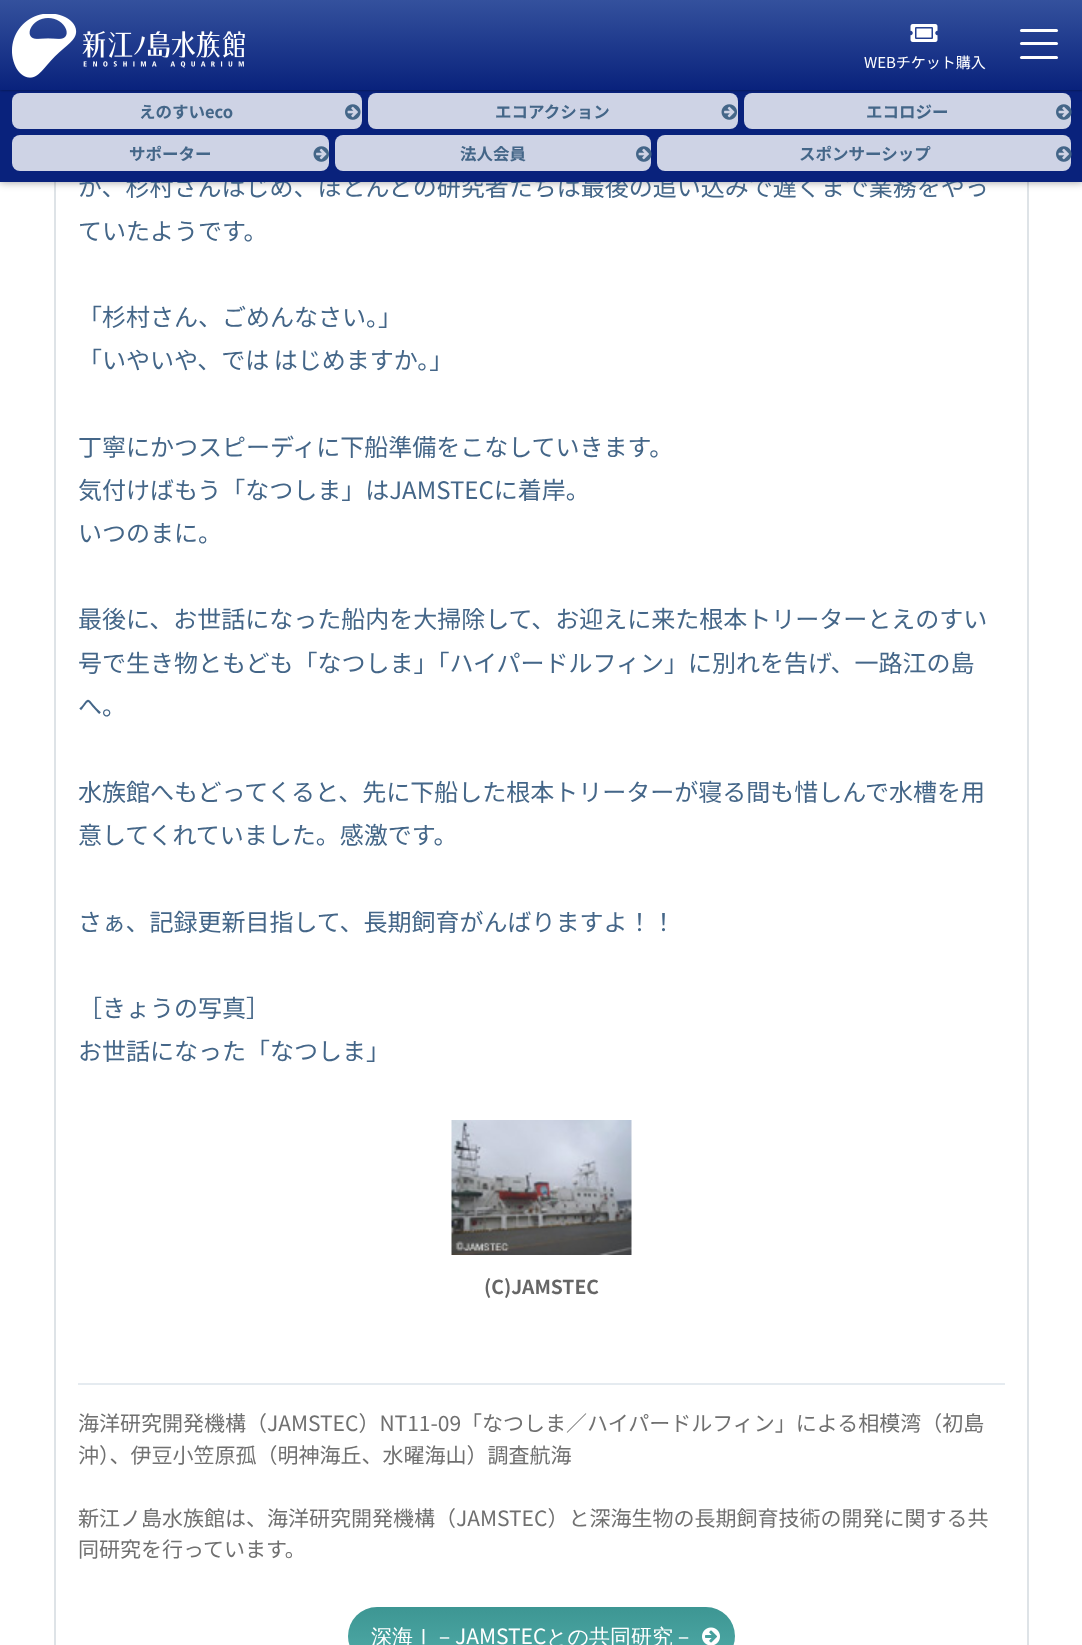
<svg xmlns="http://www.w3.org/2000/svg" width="1082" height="1645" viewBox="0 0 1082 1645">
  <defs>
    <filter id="blur1" x="-50%" y="-200%" width="200%" height="500%"><feGaussianBlur stdDeviation="4"/></filter>
    <filter id="blur2" x="-50%" y="-200%" width="200%" height="500%"><feGaussianBlur stdDeviation="1.5"/></filter>
    <linearGradient id="g1" gradientUnits="userSpaceOnUse" x1="542" y1="90" x2="542" y2="0"><stop offset="0" stop-color="#09227c"/><stop offset="1" stop-color="#34519d"/></linearGradient>
    <linearGradient id="g2" gradientUnits="userSpaceOnUse" x1="542" y1="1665" x2="542" y2="1607"><stop offset="0" stop-color="#50aba8"/><stop offset="1" stop-color="#3d9693"/></linearGradient>
  </defs>
  <rect width="100%" height="100%" fill="#ffffff"/>
  <rect x="55" y="-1" width="973" height="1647" fill="none" stroke="#dee3e7" stroke-width="2"/>
  <rect x="0" y="90" width="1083" height="92" fill="#000000" fill-opacity="0.4" filter="url(#blur1)"/>
  <text x="78" y="196" font-family="Noto Sans JP" font-size="24" fill="#446688">が、杉村さんはじめ、ほとんどの研究者たちは最後の追い込みで遅くまで業務をやっ</text>
  <rect x="0" y="90" width="1082" height="92" fill="#09227c"/>
  <rect x="12" y="93" width="350" height="36" rx="8" fill="#ced3e5"/>
  <rect x="368" y="93" width="370" height="36" rx="8" fill="#ced3e5"/>
  <rect x="744" y="93" width="327" height="36" rx="8" fill="#ced3e5"/>
  <rect x="0" y="0" width="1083" height="90" fill="#000000" fill-opacity="0.5" filter="url(#blur2)"/>
  <rect x="0" y="0" width="1082" height="90" fill="url(#g1)"/>
  <image x="12" y="14" width="233" height="64" href="img1.png"/>
  <rect x="1020" y="29" width="38" height="3" rx="1.5" fill="#ffffff"/>
  <rect x="1020" y="42" width="38" height="3" rx="1.5" fill="#ffffff"/>
  <rect x="1020" y="56" width="38" height="3" rx="1.5" fill="#ffffff"/>
  <image x="910" y="24" width="28" height="18" href="img2.png"/>
  <text x="864" y="68" font-family="Noto Sans JP" font-size="15" fill="#ffffff">WEBチケット購入</text>
  <text x="139" y="118" font-family="Noto Sans JP" font-size="16.5" font-weight="bold" fill="#446688">えのすいeco</text>
  <image x="345" y="104" width="16" height="16" href="img3.png"/>
  <text x="495" y="118" font-family="Noto Sans JP" font-size="16.5" font-weight="bold" fill="#446688">エコアクション</text>
  <image x="721" y="104" width="16" height="16" href="img4.png"/>
  <text x="866" y="118" font-family="Noto Sans JP" font-size="16.5" font-weight="bold" fill="#446688">エコロジー</text>
  <image x="1056" y="104" width="16" height="16" href="img5.png"/>
  <rect x="12" y="135" width="317" height="36" rx="8" fill="#ced3e5"/>
  <text x="129" y="160" font-family="Noto Sans JP" font-size="16.5" font-weight="bold" fill="#446688">サポーター</text>
  <image x="313" y="146" width="16" height="16" href="img4.png"/>
  <rect x="335" y="135" width="316" height="36" rx="8" fill="#ced3e5"/>
  <text x="460" y="160" font-family="Noto Sans JP" font-size="16.5" font-weight="bold" fill="#446688">法人会員</text>
  <image x="636" y="146" width="16" height="16" href="img5.png"/>
  <rect x="657" y="135" width="414" height="36" rx="8" fill="#ced3e5"/>
  <text x="799" y="160" font-family="Noto Sans JP" font-size="16.5" font-weight="bold" fill="#446688">スポンサーシップ</text>
  <image x="1056" y="146" width="16" height="16" href="img5.png"/>
  <text x="78" y="240" font-family="Noto Sans JP" font-size="24" fill="#446688">ていたようです。</text>
  <text x="78" y="326" font-family="Noto Sans JP" font-size="24" fill="#446688">「杉村さん、ごめんなさい。」</text>
  <text x="78" y="369" word-spacing="-1" font-family="Noto Sans JP" font-size="24" fill="#446688">「いやいや、では はじめますか。」</text>
  <text x="78" y="456" font-family="Noto Sans JP" font-size="24" fill="#446688">丁寧にかつスピーディに下船準備をこなしていきます。</text>
  <text x="78" y="499" font-family="Noto Sans JP" font-size="24" fill="#446688">気付けばもう「なつしま」はJAMSTECに着岸。</text>
  <text x="78" y="542" font-family="Noto Sans JP" font-size="24" fill="#446688">いつのまに。</text>
  <text x="78" y="628" font-family="Noto Sans JP" font-size="24" fill="#446688">最後に、お世話になった船内を大掃除して、お迎えに来た根本トリーターとえのすい</text>
  <text x="78" y="672" font-family="Noto Sans JP" font-size="24" fill="#446688">号で生き物ともども「なつしま」「ハイパードルフィン」に別れを告げ、一路江の島</text>
  <text x="78" y="715" font-family="Noto Sans JP" font-size="24" fill="#446688">へ。</text>
  <text x="78" y="801" font-family="Noto Sans JP" font-size="24" fill="#446688">水族館へもどってくると、先に下船した根本トリーターが寝る間も惜しんで水槽を用</text>
  <text x="78" y="844" font-family="Noto Sans JP" font-size="24" fill="#446688">意してくれていました。感激です。</text>
  <text x="78" y="931" font-family="Noto Sans JP" font-size="24" fill="#446688">さぁ、記録更新目指して、長期飼育がんばりますよ！！</text>
  <text x="78" y="1017" font-family="Noto Sans JP" font-size="24" fill="#446688">［きょうの写真］</text>
  <text x="78" y="1060" font-family="Noto Sans JP" font-size="24" fill="#446688">お世話になった「なつしま」</text>
  <image x="451" y="1120" width="181" height="135" href="img6.png"/>
  <text x="484" y="1294" font-family="Noto Sans JP" font-size="19.25" font-weight="bold" fill="#666666">(C)JAMSTEC</text>
  <rect x="78" y="1383" width="927" height="2" fill="#e5ebf0"/>
  <text x="78" y="1431" font-family="Noto Sans JP" font-size="21" fill="#707070">海洋研究開発機構（JAMSTEC）NT11-09「なつしま／ハイパードルフィン」による相模湾（初島</text>
  <text x="78" y="1463" font-family="Noto Sans JP" font-size="21" fill="#707070">沖）、伊豆小笠原孤（明神海丘、水曜海山）調査航海</text>
  <text x="78" y="1526" font-family="Noto Sans JP" font-size="21" fill="#707070">新江ノ島水族館は、海洋研究開発機構（JAMSTEC）と深海生物の長期飼育技術の開発に関する共</text>
  <text x="78" y="1557" font-family="Noto Sans JP" font-size="21" fill="#707070">同研究を行っています。</text>
  <rect x="348" y="1607" width="387" height="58" rx="29" fill="url(#g2)"/>
  <text x="371" y="1644" font-family="WenQuanYi Zen Hei" font-size="21" font-weight="500" fill="#ffffff">深海Ⅰ－</text>
  <text x="455" y="1644" font-family="Noto Sans JP" font-size="21" fill="#ffffff">JAMSTEC</text>
  <text x="546" y="1644" font-family="WenQuanYi Zen Hei" font-size="21" font-weight="500" fill="#ffffff">との共同研究－</text>
  <image x="702" y="1627" width="18" height="18" href="img7.png"/>
</svg>
